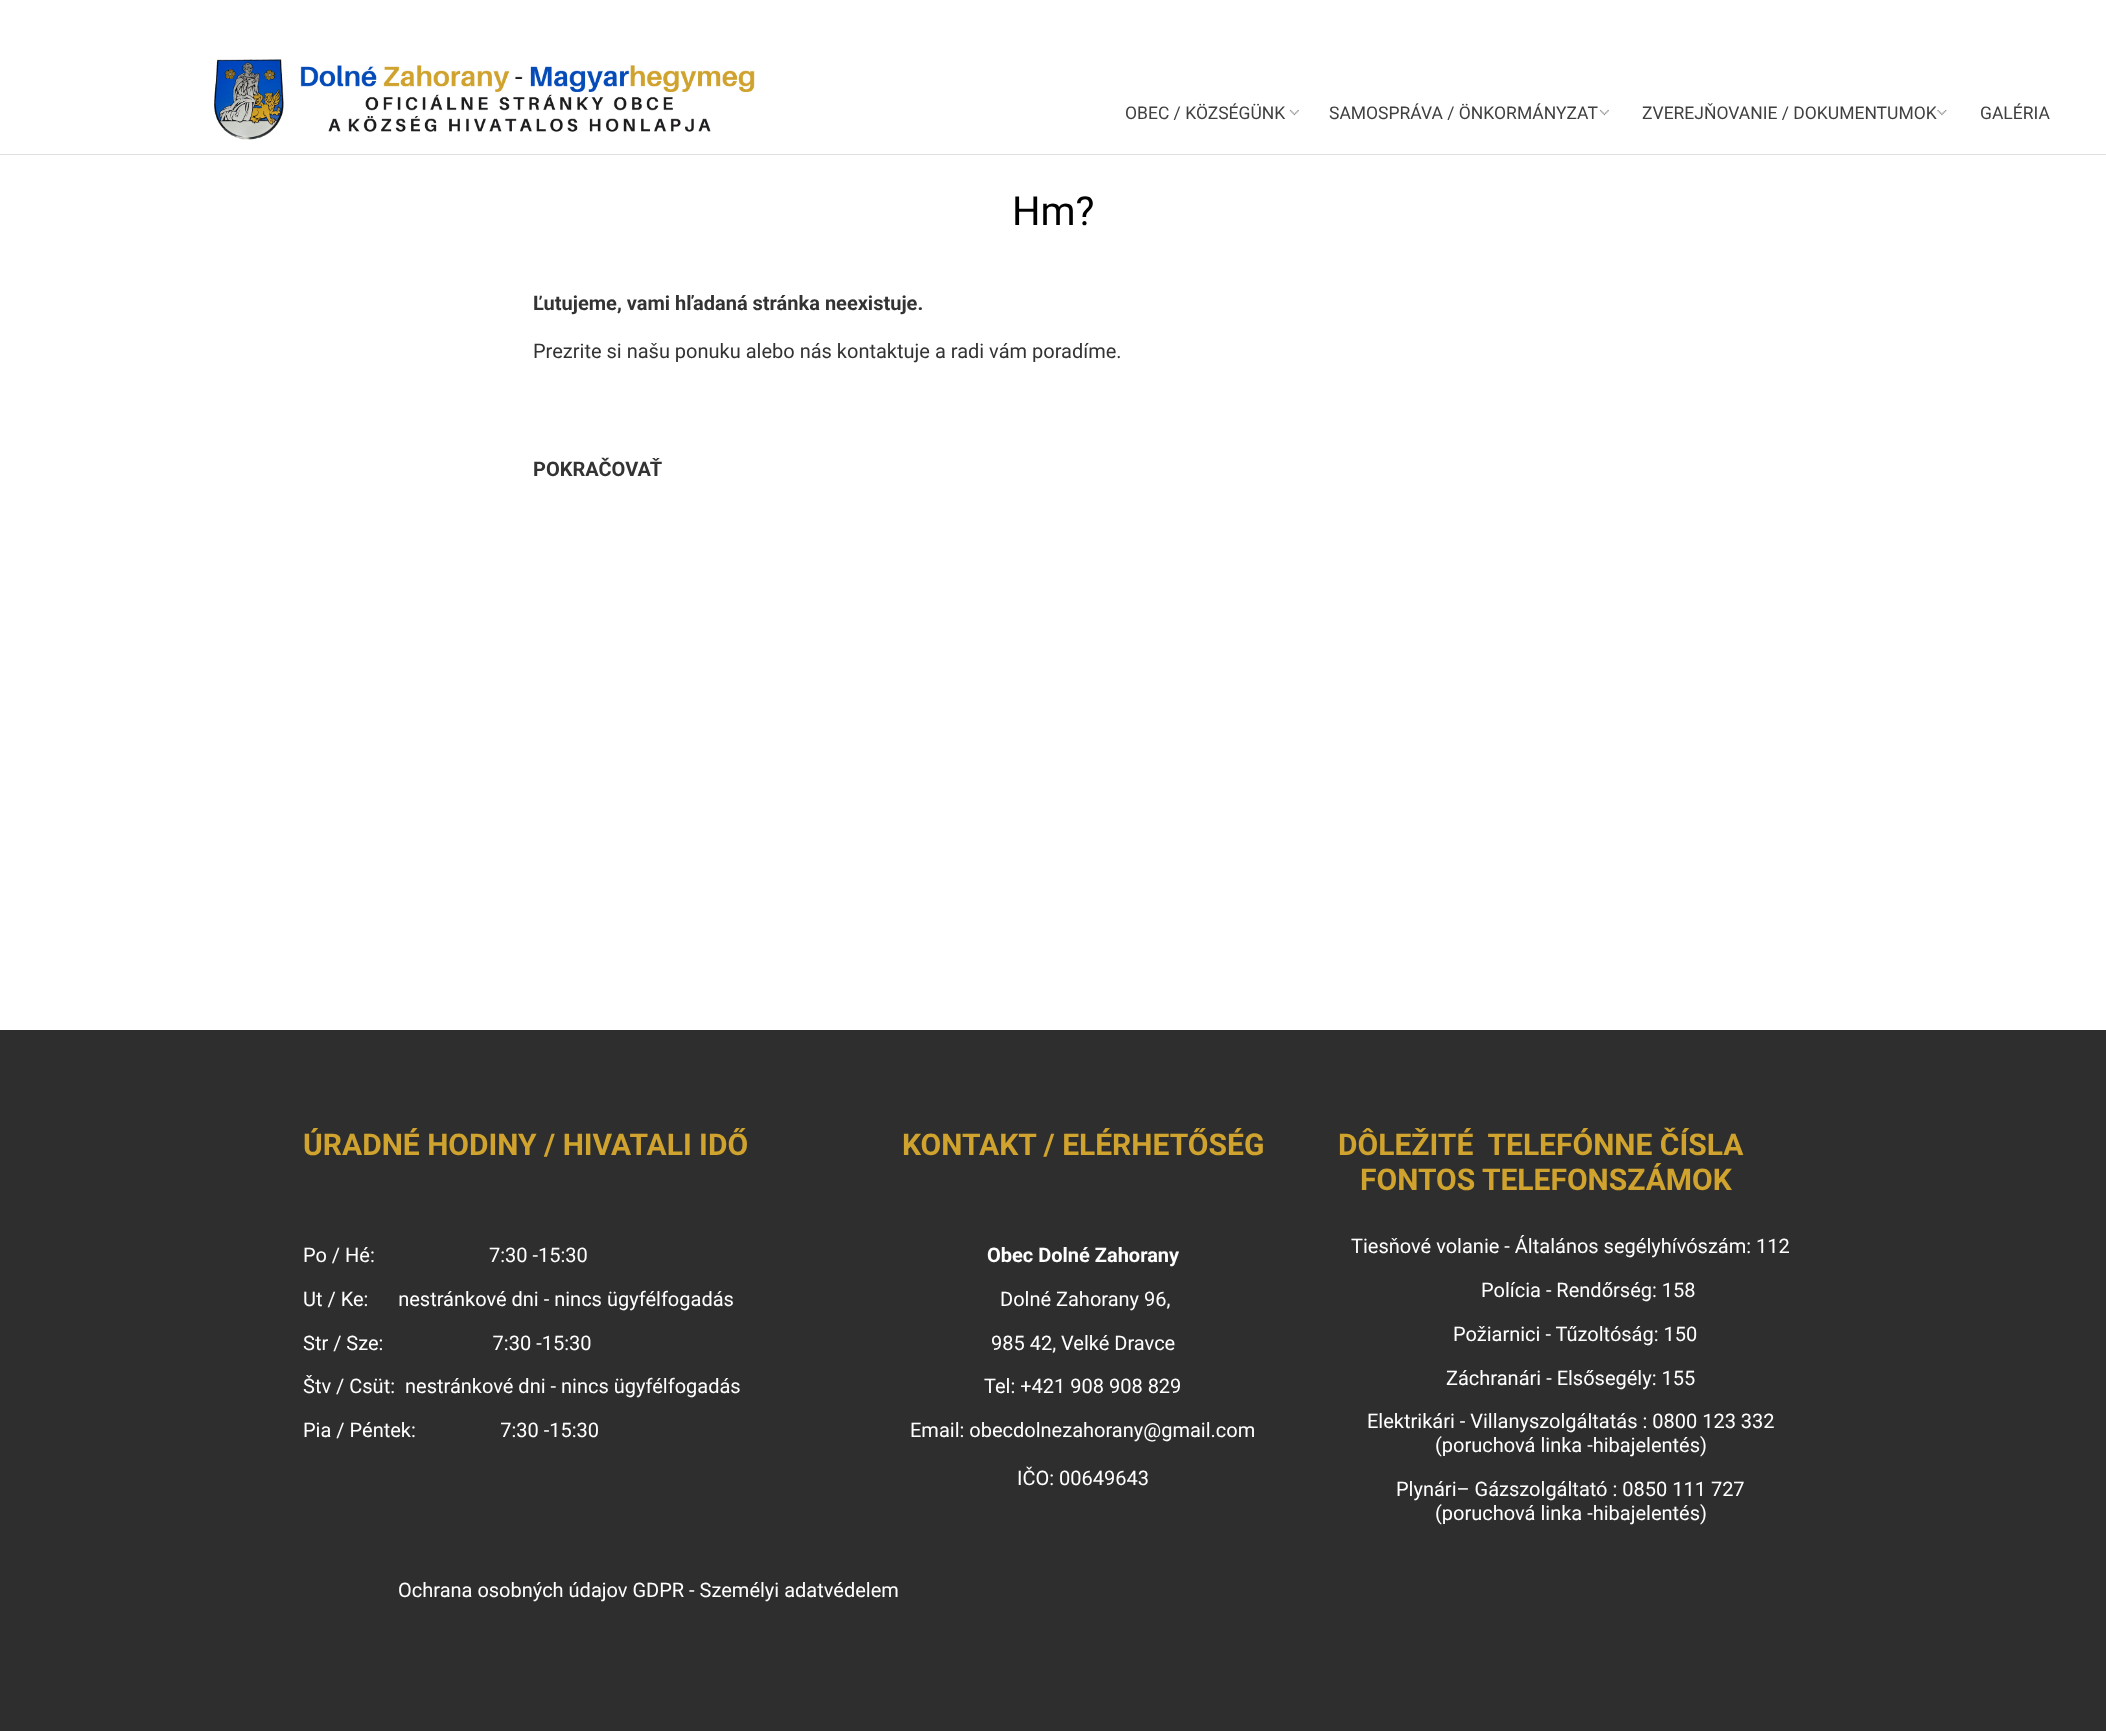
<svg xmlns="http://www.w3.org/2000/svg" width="2106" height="1731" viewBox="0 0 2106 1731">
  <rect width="100%" height="100%" fill="#ffffff"/>
  <image x="214" y="59" width="541" height="81" href="img1.png"/>
  <rect x="0" y="154" width="2106" height="1" fill="#e0e0e0"/>
  <image x="1289" y="109" width="10" height="7" href="img2.png"/>
  <text x="1125" y="119" font-family="Roboto" font-size="17.5" fill="#404040">OBEC / KÖZSÉGÜNK</text>
  <image x="1599" y="109" width="10" height="7" href="img2.png"/>
  <text x="1329" y="119" font-family="Roboto" font-size="17.5" fill="#404040">SAMOSPRÁVA / ÖNKORMÁNYZAT</text>
  <image x="1937" y="109" width="10" height="7" href="img3.png"/>
  <text x="1642" y="119" font-family="Roboto" font-size="17.5" fill="#404040">ZVEREJŇOVANIE / DOKUMENTUMOK</text>
  <text x="1980" y="119" font-family="Roboto" font-size="17.5" fill="#404040">GALÉRIA</text>
  <text x="1012" y="225" font-family="Roboto" font-size="40" fill="#000000">Hm?</text>
  <text x="533" y="310" font-family="Roboto" font-size="20" font-weight="bold" fill="#333333">Ľutujeme, vami hľadaná stránka neexistuje.</text>
  <text x="533" y="358" font-family="Roboto" font-size="20" fill="#333333">Prezrite si našu ponuku alebo nás kontaktuje a radi vám poradíme.</text>
  <text x="533" y="476" font-family="Roboto" font-size="20" font-weight="bold" fill="#333333">POKRAČOVAŤ</text>
  <rect x="0" y="1030" width="2106" height="701" fill="#2e2e2e"/>
  <text x="303" y="1155" font-family="Roboto" font-size="30" font-weight="bold" fill="#cfa32e">ÚRADNÉ HODINY / HIVATALI IDŐ</text>
  <text x="303" y="1262" font-family="Roboto" font-size="20" fill="#ffffff" xml:space="preserve">Po / Hé:                       7:30 -15:30</text>
  <text x="303" y="1306" font-family="Roboto" font-size="20" fill="#ffffff" xml:space="preserve">Ut / Ke:      nestránkové dni - nincs ügyfélfogadás</text>
  <text x="303" y="1350" font-family="Roboto" font-size="20" fill="#ffffff" xml:space="preserve">Str / Sze:                      7:30 -15:30</text>
  <text x="303" y="1393" font-family="Roboto" font-size="20" fill="#ffffff">Štv / Csüt:</text>
  <text x="405" y="1393" font-family="Roboto" font-size="20" fill="#ffffff">nestránkové dni - nincs ügyfélfogadás</text>
  <text x="303" y="1437" font-family="Roboto" font-size="20" fill="#ffffff" xml:space="preserve">Pia / Péntek:                 7:30 -15:30</text>
  <text x="902" y="1155" font-family="Roboto" font-size="30" font-weight="bold" fill="#cfa32e">KONTAKT / ELÉRHETŐSÉG</text>
  <text x="987" y="1262" font-family="Roboto" font-size="20" font-weight="bold" fill="#ffffff">Obec Dolné Zahorany</text>
  <text x="1000" y="1306" font-family="Roboto" font-size="20" fill="#ffffff">Dolné Zahorany 96,</text>
  <text x="991" y="1350" font-family="Roboto" font-size="20" fill="#ffffff">985 42, Velké Dravce</text>
  <text x="984" y="1393" font-family="Roboto" font-size="20" fill="#ffffff">Tel: +421 908 908 829</text>
  <text x="910" y="1437" font-family="Roboto" font-size="20" fill="#ffffff">Email: obecdolnezahorany@gmail.com</text>
  <text x="1017" y="1485" font-family="Roboto" font-size="20" fill="#ffffff">IČO: 00649643</text>
  <text x="1338" y="1155" font-family="Roboto" font-size="30" font-weight="bold" fill="#cfa32e" xml:space="preserve">DÔLEŽITÉ  TELEFÓNNE ČÍSLA</text>
  <text x="1360" y="1190" font-family="Roboto" font-size="30" font-weight="bold" fill="#cfa32e">FONTOS TELEFONSZÁMOK</text>
  <text x="1351" y="1253" font-family="Roboto" font-size="20" fill="#ffffff">Tiesňové volanie - Általános segélyhívószám: 112</text>
  <text x="1481" y="1297" font-family="Roboto" font-size="20" fill="#ffffff">Polícia - Rendőrség: 158</text>
  <text x="1453" y="1341" font-family="Roboto" font-size="20" fill="#ffffff">Požiarnici - Tűzoltóság: 150</text>
  <text x="1446" y="1385" font-family="Roboto" font-size="20" fill="#ffffff">Záchranári - Elsősegély: 155</text>
  <text x="1367" y="1428" font-family="Roboto" font-size="20" fill="#ffffff">Elektrikári - Villanyszolgáltatás : 0800 123 332</text>
  <text x="1435" y="1452" font-family="Roboto" font-size="20" fill="#ffffff">(poruchová linka -hibajelentés)</text>
  <text x="1396" y="1496" font-family="Roboto" font-size="20" fill="#ffffff">Plynári– Gázszolgáltató : 0850 111 727</text>
  <text x="1435" y="1520" font-family="Roboto" font-size="20" fill="#ffffff">(poruchová linka -hibajelentés)</text>
  <text x="398" y="1597" font-family="Roboto" font-size="20" fill="#ffffff">Ochrana osobných údajov GDPR - Személyi adatvédelem</text>
</svg>
